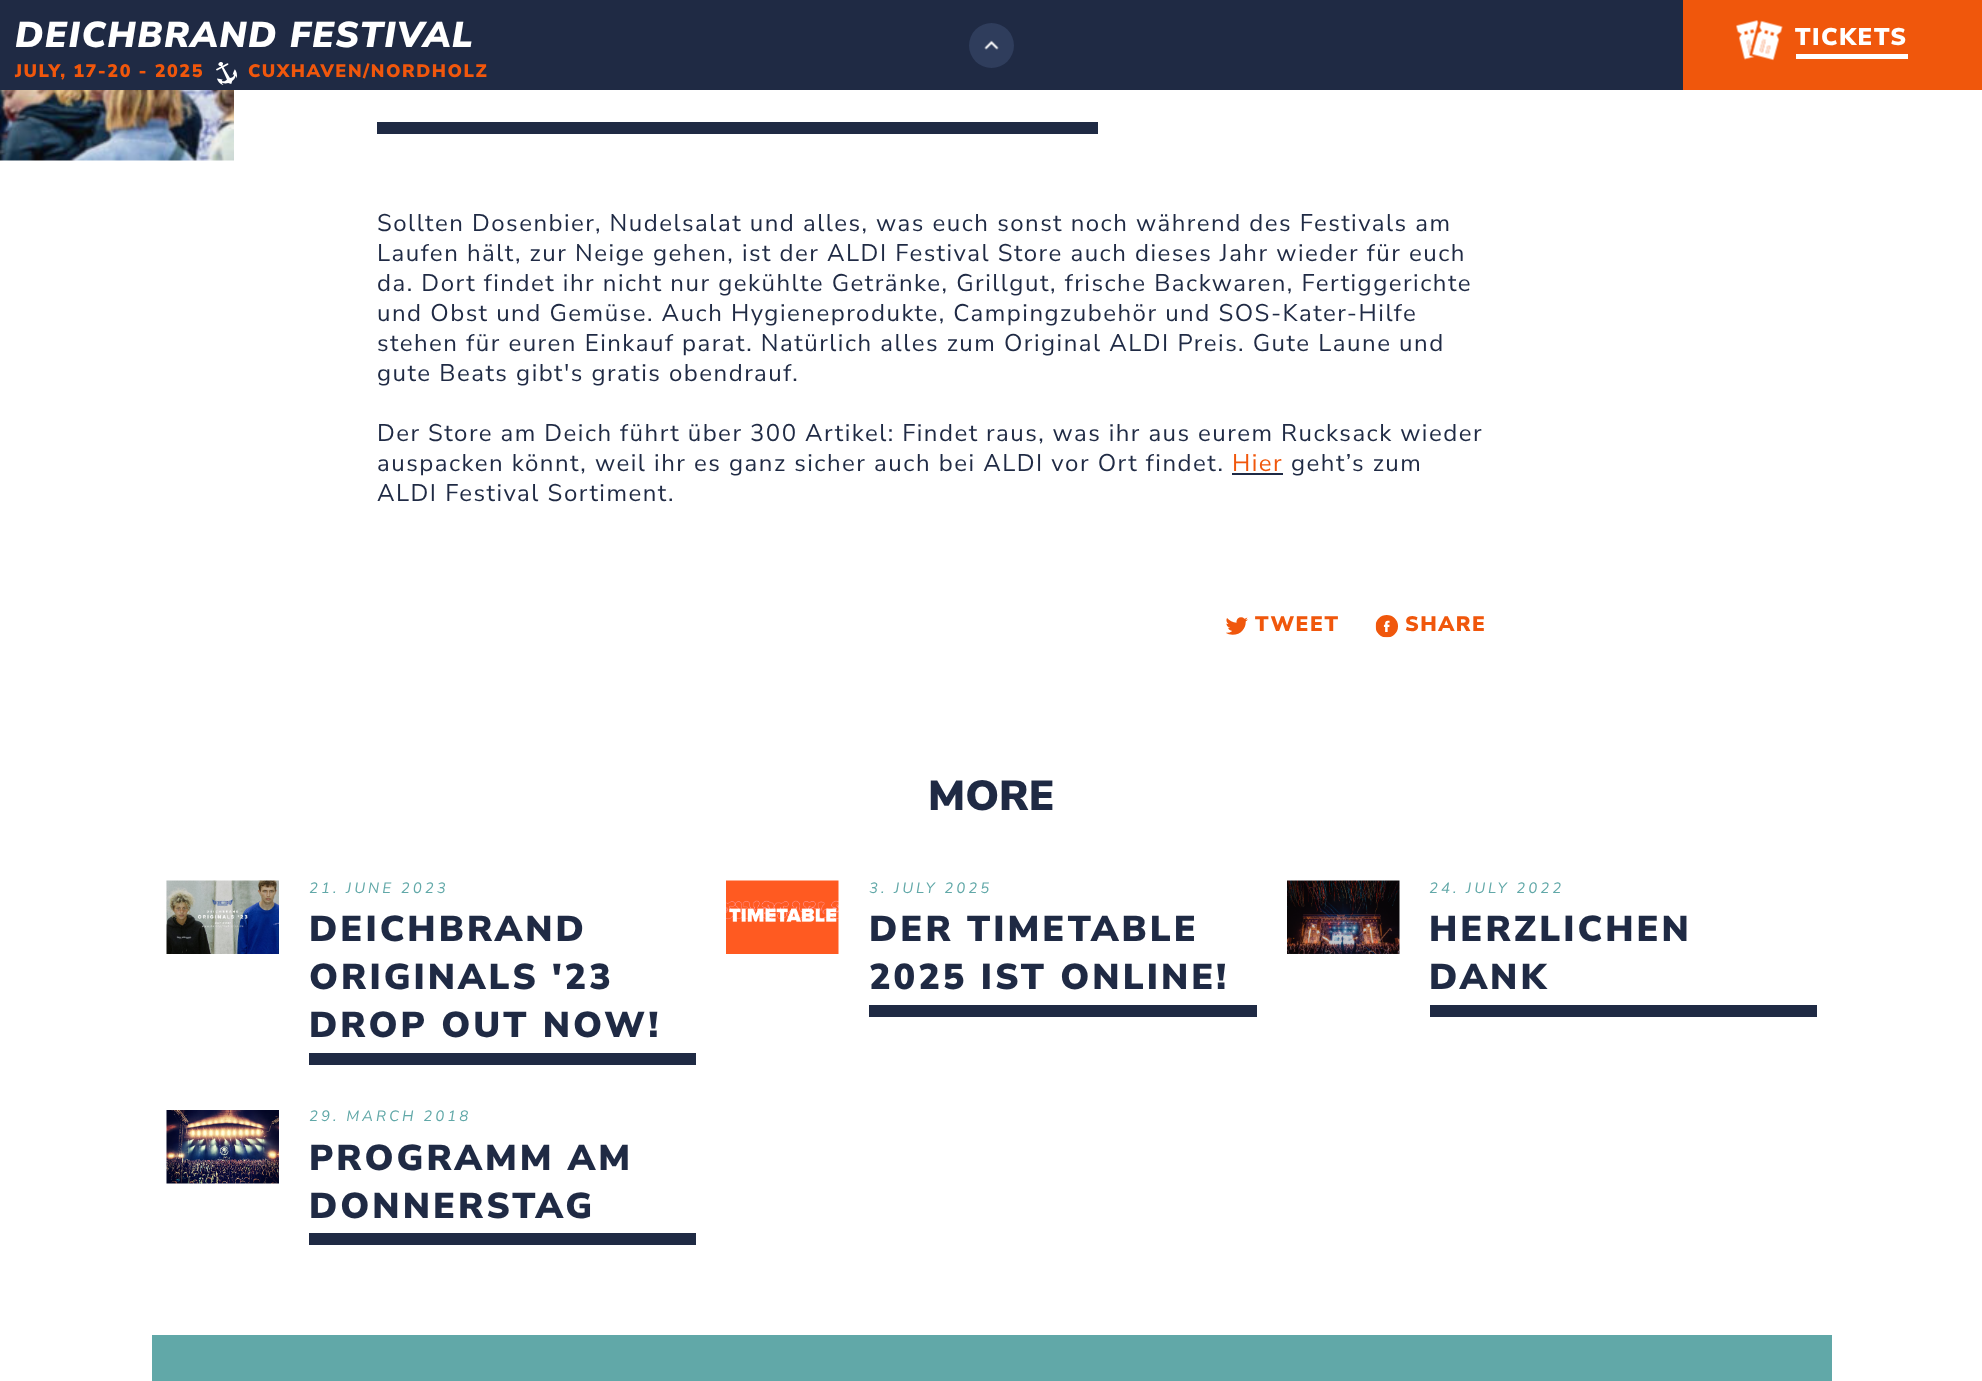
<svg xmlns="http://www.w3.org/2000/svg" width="1982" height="1381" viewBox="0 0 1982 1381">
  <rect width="100%" height="100%" fill="#ffffff"/>
  <rect x="0" y="0" width="1683" height="90" fill="#1f2a44"/>
  <text x="15" y="47" font-family="Nunito Sans" font-size="36" font-weight="900" font-style="italic" letter-spacing="1.5" fill="#ffffff">DEICHBRAND FESTIVAL</text>
  <text x="15" y="77" font-family="Nunito Sans" font-size="18" font-weight="900" letter-spacing="1.5" fill="#f0570c">JULY, 17-20 - 2025</text>
  <image x="216" y="62" width="21" height="23" href="img1.png"/>
  <text x="248" y="77" font-family="Nunito Sans" font-size="18" font-weight="900" letter-spacing="1.5" fill="#f0570c">CUXHAVEN/NORDHOLZ</text>
  <circle cx="991.5" cy="45.5" r="22.5" fill="#2f3d5c"/>
  <image x="984" y="40" width="15" height="10" href="img2.png"/>
  <rect x="1683" y="0" width="299" height="90" fill="#f0570c"/>
  <image x="1736" y="20" width="47" height="41" href="img3.png"/>
  <text x="1795" y="45" font-family="Nunito Sans" font-size="24" font-weight="900" letter-spacing="1.5" fill="#ffffff">TICKETS</text>
  <rect x="1796" y="54" width="112" height="5" fill="#ffffff"/>
  <image x="0" y="90" width="234" height="71" href="img4.png"/>
  <rect x="377" y="122" width="721" height="12" fill="#1f2a44"/>
  <text x="377" y="231" font-family="Nunito Sans" font-size="24" letter-spacing="1.5" fill="#1f2a44">Sollten Dosenbier, Nudelsalat und alles, was euch sonst noch während des Festivals am</text>
  <text x="377" y="261" font-family="Nunito Sans" font-size="24" letter-spacing="1.5" fill="#1f2a44">Laufen hält, zur Neige gehen, ist der ALDI Festival Store auch dieses Jahr wieder für euch</text>
  <text x="377" y="291" font-family="Nunito Sans" font-size="24" letter-spacing="1.5" fill="#1f2a44">da. Dort findet ihr nicht nur gekühlte Getränke, Grillgut, frische Backwaren, Fertiggerichte</text>
  <text x="377" y="321" font-family="Nunito Sans" font-size="24" letter-spacing="1.5" fill="#1f2a44">und Obst und Gemüse. Auch Hygieneprodukte, Campingzubehör und SOS-Kater-Hilfe</text>
  <text x="377" y="351" font-family="Nunito Sans" font-size="24" letter-spacing="1.5" fill="#1f2a44">stehen für euren Einkauf parat. Natürlich alles zum Original ALDI Preis. Gute Laune und</text>
  <text x="377" y="381" font-family="Nunito Sans" font-size="24" letter-spacing="1.5" fill="#1f2a44">gute Beats gibt's gratis obendrauf.</text>
  <text x="377" y="441" word-spacing="-0.25" font-family="Nunito Sans" font-size="24" letter-spacing="1.5" fill="#1f2a44">Der Store am Deich führt über 300 Artikel: Findet raus, was ihr aus eurem Rucksack wieder</text>
  <text x="377" y="471" font-family="Nunito Sans" font-size="24" letter-spacing="1.5" fill="#1f2a44">auspacken könnt, weil ihr es ganz sicher auch bei ALDI vor Ort findet.</text>
  <text x="1232" y="471" font-family="Nunito Sans" font-size="24" letter-spacing="1.5" fill="#f0570c">Hier</text>
  <rect x="1232" y="473" width="51" height="2" fill="#1f2a44"/>
  <text x="1291" y="471" font-family="Nunito Sans" font-size="24" letter-spacing="1.5" fill="#1f2a44">geht’s zum</text>
  <text x="377" y="501" font-family="Nunito Sans" font-size="24" letter-spacing="1.5" fill="#1f2a44">ALDI Festival Sortiment.</text>
  <image x="1226" y="617" width="22" height="18" href="img5.png"/>
  <text x="1255" y="631" font-family="Nunito Sans" font-size="21" font-weight="900" letter-spacing="1.5" fill="#f0570c">TWEET</text>
  <image x="1375" y="615" width="23" height="23" href="img6.png"/>
  <text x="1405" y="631" font-family="Nunito Sans" font-size="21" font-weight="900" letter-spacing="1.5" fill="#f0570c">SHARE</text>
  <text x="928" y="810" font-family="Nunito Sans" font-size="42" font-weight="900" fill="#1f2a44">MORE</text>
  <image x="166" y="880" width="113" height="74" href="img7.png"/>
  <text x="309" y="893" font-family="Nunito Sans" font-size="15" font-style="italic" letter-spacing="3" fill="#61a8a8">21. JUNE 2023</text>
  <text x="309" y="941" font-family="Nunito Sans" font-size="36" font-weight="900" letter-spacing="3" fill="#1f2a44">DEICHBRAND</text>
  <text x="309" y="989" font-family="Nunito Sans" font-size="36" font-weight="900" letter-spacing="3" fill="#1f2a44">ORIGINALS '23</text>
  <text x="309" y="1037" font-family="Nunito Sans" font-size="36" font-weight="900" letter-spacing="3" fill="#1f2a44">DROP OUT NOW!</text>
  <rect x="309" y="1053" width="387" height="12" fill="#1f2a44"/>
  <image x="726" y="880" width="113" height="74" href="img8.png"/>
  <text x="869" y="893" font-family="Nunito Sans" font-size="15" font-style="italic" letter-spacing="3" fill="#61a8a8">3. JULY 2025</text>
  <text x="869" y="941" font-family="Nunito Sans" font-size="36" font-weight="900" letter-spacing="3" fill="#1f2a44">DER TIMETABLE</text>
  <text x="869" y="989" font-family="Nunito Sans" font-size="36" font-weight="900" letter-spacing="3" fill="#1f2a44">2025 IST ONLINE!</text>
  <rect x="869" y="1005" width="388" height="12" fill="#1f2a44"/>
  <image x="1287" y="880" width="113" height="74" href="img9.png"/>
  <text x="1429" y="893" font-family="Nunito Sans" font-size="15" font-style="italic" letter-spacing="3" fill="#61a8a8">24. JULY 2022</text>
  <text x="1429" y="941" font-family="Nunito Sans" font-size="36" font-weight="900" letter-spacing="3" fill="#1f2a44">HERZLICHEN</text>
  <text x="1429" y="989" font-family="Nunito Sans" font-size="36" font-weight="900" letter-spacing="3" fill="#1f2a44">DANK</text>
  <rect x="1430" y="1005" width="387" height="12" fill="#1f2a44"/>
  <image x="166" y="1110" width="113" height="74" href="img10.png"/>
  <text x="309" y="1121" font-family="Nunito Sans" font-size="15" font-style="italic" letter-spacing="3" fill="#61a8a8">29. MARCH 2018</text>
  <text x="309" y="1170" font-family="Nunito Sans" font-size="36" font-weight="900" letter-spacing="3" fill="#1f2a44">PROGRAMM AM</text>
  <text x="309" y="1218" font-family="Nunito Sans" font-size="36" font-weight="900" letter-spacing="3" fill="#1f2a44">DONNERSTAG</text>
  <rect x="309" y="1233" width="387" height="12" fill="#1f2a44"/>
  <rect x="152" y="1335" width="1680" height="46" fill="#61a8a8"/>
</svg>
